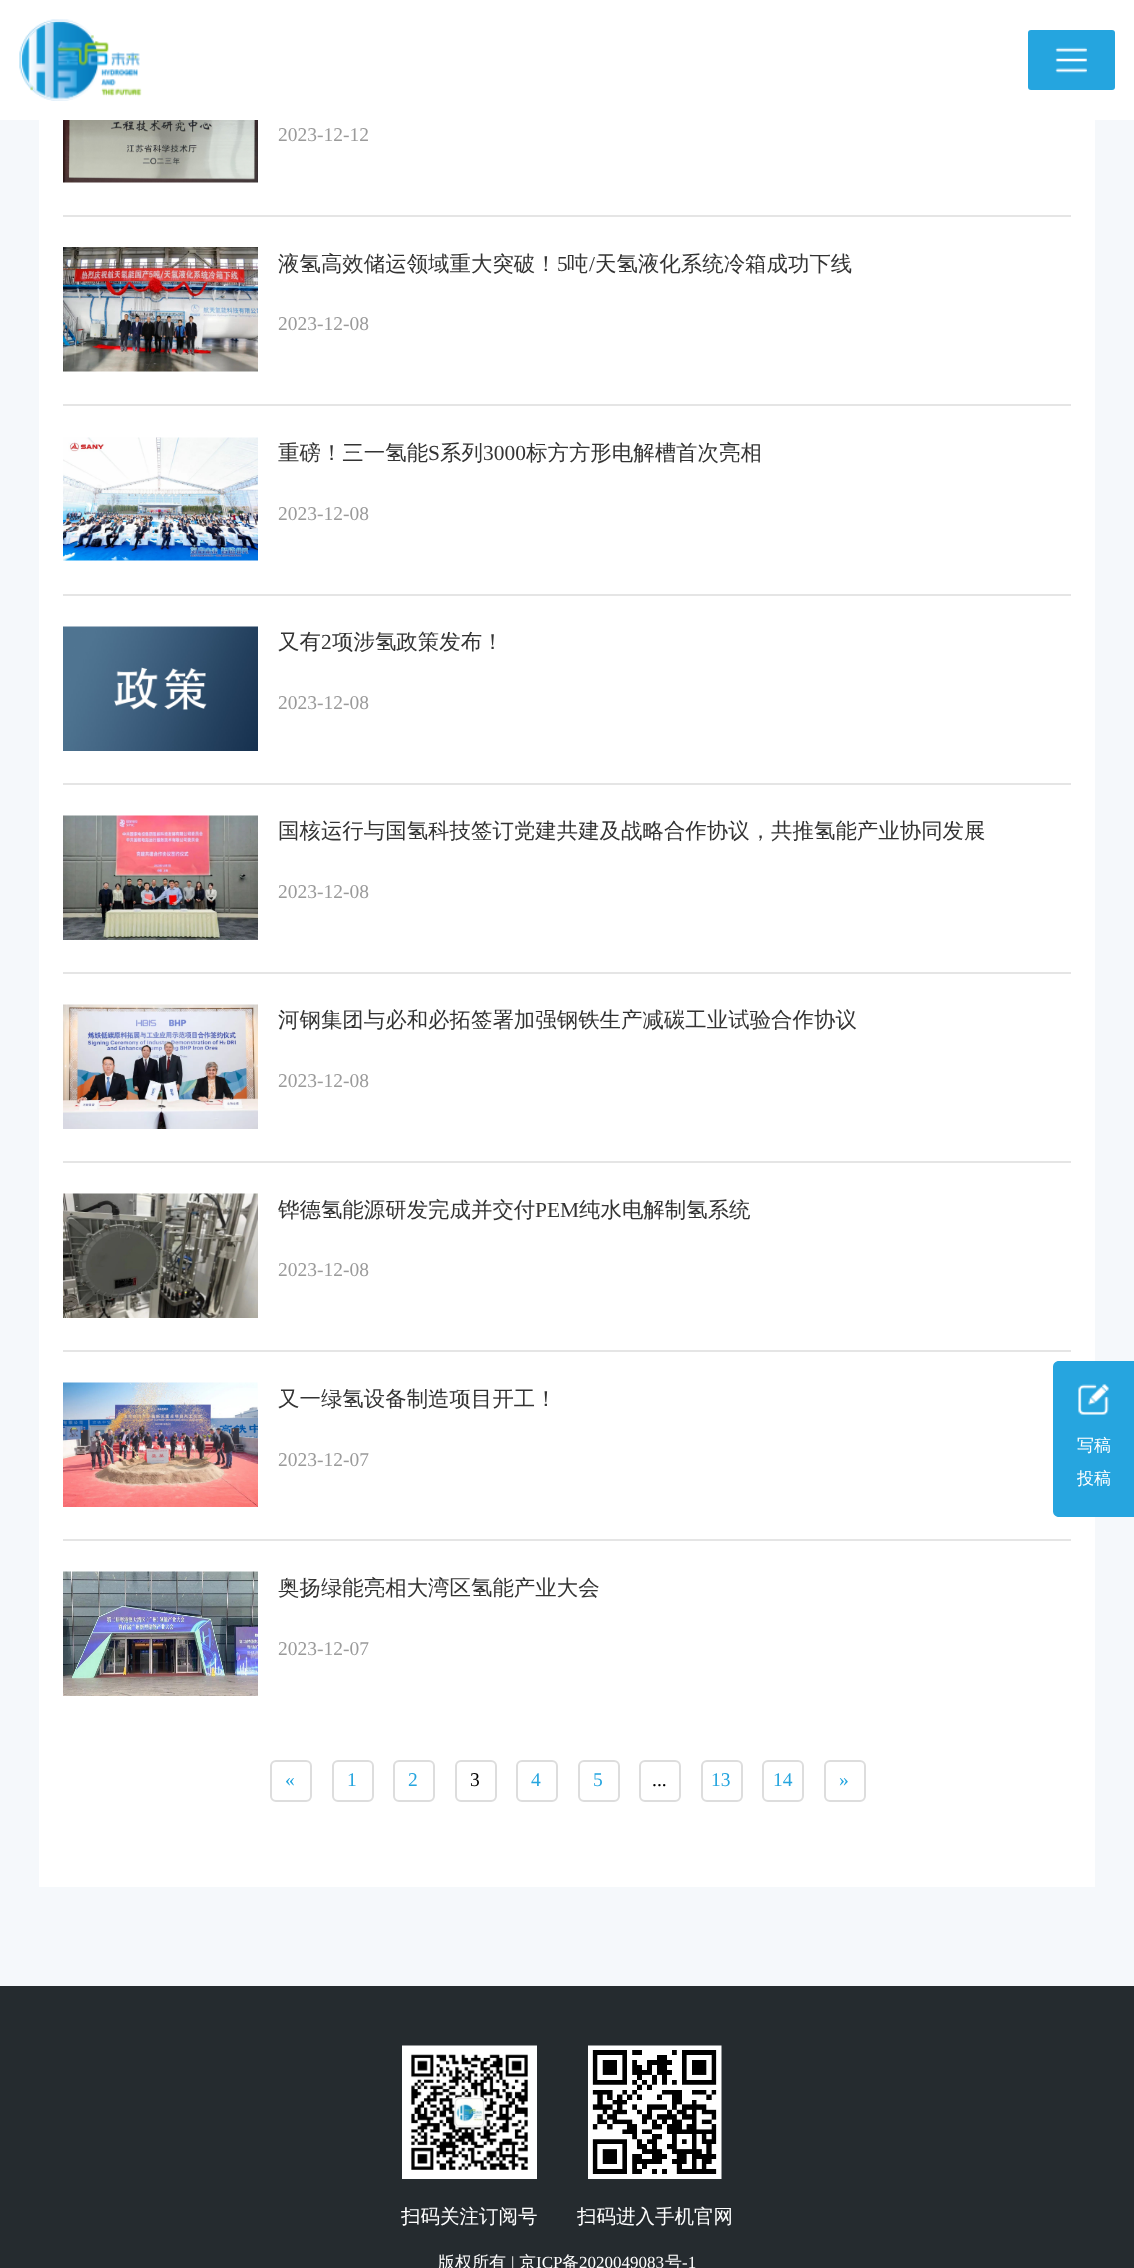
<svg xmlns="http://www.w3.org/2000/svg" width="1134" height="2268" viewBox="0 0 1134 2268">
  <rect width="100%" height="100%" fill="#f5f8fb"/>
  <rect x="0" y="0" width="1134" height="120" fill="#ffffff"/>
  <image x="19" y="19" width="123" height="82" href="img1.png"/>
  <rect x="1028" y="30" width="87" height="60" rx="3" fill="#25a5df"/>
  <image x="1055" y="47" width="32" height="26" href="img2.png"/>
  <rect x="39" y="120" width="1056" height="1767" fill="#ffffff"/>
  <rect x="63" y="215" width="1008" height="2" fill="#e5e5e5"/>
  <image x="63" y="120" width="195" height="63" href="img3.png"/>
  <text x="278" y="141" font-family="Liberation Serif" font-size="19.5" fill="#9a9a9a">2023-12-12</text>
  <rect x="63" y="404" width="1008" height="2" fill="#e5e5e5"/>
  <image x="63" y="247" width="195" height="125" href="img4.png"/>
  <text x="278" y="271" font-family="WenQuanYi Zen Hei" font-size="21.45" font-weight="500" fill="#333333">液氢高效储运领域重大突破！</text>
  <text x="557" y="271" font-family="Liberation Serif" font-size="21.45" fill="#333333">5</text>
  <text x="567" y="271" font-family="WenQuanYi Zen Hei" font-size="21.45" font-weight="500" fill="#333333">吨</text>
  <text x="589" y="271" font-family="Liberation Serif" font-size="21.45" fill="#333333">/</text>
  <text x="595" y="271" font-family="WenQuanYi Zen Hei" font-size="21.45" font-weight="500" fill="#333333">天氢液化系统冷箱成功下线</text>
  <text x="278" y="330" font-family="Liberation Serif" font-size="19.5" fill="#9a9a9a">2023-12-08</text>
  <rect x="63" y="594" width="1008" height="2" fill="#e5e5e5"/>
  <image x="63" y="437" width="195" height="124" href="img5.png"/>
  <text x="278" y="460" font-family="WenQuanYi Zen Hei" font-size="21.45" font-weight="500" fill="#333333">重磅！三一氢能</text>
  <text x="428" y="460" font-family="Liberation Serif" font-size="21.45" fill="#333333">S</text>
  <text x="440" y="460" font-family="WenQuanYi Zen Hei" font-size="21.45" font-weight="500" fill="#333333">系列</text>
  <text x="483" y="460" font-family="Liberation Serif" font-size="21.45" fill="#333333">3000</text>
  <text x="526" y="460" font-family="WenQuanYi Zen Hei" font-size="21.45" font-weight="500" fill="#333333">标方方形电解槽首次亮相</text>
  <text x="278" y="520" font-family="Liberation Serif" font-size="19.5" fill="#9a9a9a">2023-12-08</text>
  <rect x="63" y="783" width="1008" height="2" fill="#e5e5e5"/>
  <image x="63" y="626" width="195" height="125" href="img6.png"/>
  <text x="278" y="649" font-family="WenQuanYi Zen Hei" font-size="21.45" font-weight="500" fill="#333333">又有</text>
  <text x="321" y="649" font-family="Liberation Serif" font-size="21.45" fill="#333333">2</text>
  <text x="332" y="649" font-family="WenQuanYi Zen Hei" font-size="21.45" font-weight="500" fill="#333333">项涉氢政策发布！</text>
  <text x="278" y="709" font-family="Liberation Serif" font-size="19.5" fill="#9a9a9a">2023-12-08</text>
  <rect x="63" y="972" width="1008" height="2" fill="#e5e5e5"/>
  <image x="63" y="815" width="195" height="125" href="img7.png"/>
  <text x="278" y="838" font-family="WenQuanYi Zen Hei" font-size="21.45" font-weight="500" fill="#333333">国核运行与国氢科技签订党建共建及战略合作协议，共推氢能产业协同发展</text>
  <text x="278" y="898" font-family="Liberation Serif" font-size="19.5" fill="#9a9a9a">2023-12-08</text>
  <rect x="63" y="1161" width="1008" height="2" fill="#e5e5e5"/>
  <image x="63" y="1004" width="195" height="125" href="img8.png"/>
  <text x="278" y="1027" font-family="WenQuanYi Zen Hei" font-size="21.45" font-weight="500" fill="#333333">河钢集团与必和必拓签署加强钢铁生产减碳工业试验合作协议</text>
  <text x="278" y="1087" font-family="Liberation Serif" font-size="19.5" fill="#9a9a9a">2023-12-08</text>
  <rect x="63" y="1350" width="1008" height="2" fill="#e5e5e5"/>
  <image x="63" y="1193" width="195" height="125" href="img9.png"/>
  <text x="278" y="1217" font-family="WenQuanYi Zen Hei" font-size="21.45" font-weight="500" fill="#333333">铧德氢能源研发完成并交付</text>
  <text x="535" y="1217" font-family="Liberation Serif" font-size="21.45" fill="#333333">PEM</text>
  <text x="579" y="1217" font-family="WenQuanYi Zen Hei" font-size="21.45" font-weight="500" fill="#333333">纯水电解制氢系统</text>
  <text x="278" y="1276" font-family="Liberation Serif" font-size="19.5" fill="#9a9a9a">2023-12-08</text>
  <rect x="63" y="1539" width="1008" height="2" fill="#e5e5e5"/>
  <image x="63" y="1382" width="195" height="125" href="img10.png"/>
  <text x="278" y="1406" font-family="WenQuanYi Zen Hei" font-size="21.45" font-weight="500" fill="#333333">又一绿氢设备制造项目开工！</text>
  <text x="278" y="1466" font-family="Liberation Serif" font-size="19.5" fill="#9a9a9a">2023-12-07</text>
  <image x="63" y="1571" width="195" height="125" href="img11.png"/>
  <text x="278" y="1595" font-family="WenQuanYi Zen Hei" font-size="21.45" font-weight="500" fill="#333333">奥扬绿能亮相大湾区氢能产业大会</text>
  <text x="278" y="1655" font-family="Liberation Serif" font-size="19.5" fill="#9a9a9a">2023-12-07</text>
  <rect x="271" y="1761" width="40" height="40" rx="5" fill="none" stroke="#dddddd" stroke-width="2"/>
  <text x="285" y="1786" font-family="Liberation Serif" font-size="19.5" fill="#25a5df">«</text>
  <rect x="333" y="1761" width="40" height="40" rx="5" fill="none" stroke="#dddddd" stroke-width="2"/>
  <text x="347" y="1786" font-family="Liberation Serif" font-size="19.5" fill="#25a5df">1</text>
  <rect x="394" y="1761" width="40" height="40" rx="5" fill="none" stroke="#dddddd" stroke-width="2"/>
  <text x="408" y="1786" font-family="Liberation Serif" font-size="19.5" fill="#25a5df">2</text>
  <rect x="456" y="1761" width="40" height="40" rx="5" fill="none" stroke="#dddddd" stroke-width="2"/>
  <text x="470" y="1786" font-family="Liberation Serif" font-size="19.5" fill="#000000">3</text>
  <rect x="517" y="1761" width="40" height="40" rx="5" fill="none" stroke="#dddddd" stroke-width="2"/>
  <text x="531" y="1786" font-family="Liberation Serif" font-size="19.5" fill="#25a5df">4</text>
  <rect x="579" y="1761" width="40" height="40" rx="5" fill="none" stroke="#dddddd" stroke-width="2"/>
  <text x="593" y="1786" font-family="Liberation Serif" font-size="19.5" fill="#25a5df">5</text>
  <rect x="640" y="1761" width="40" height="40" rx="5" fill="none" stroke="#dddddd" stroke-width="2"/>
  <text x="652" y="1786" font-family="Liberation Serif" font-size="19.5" fill="#000000">...</text>
  <rect x="702" y="1761" width="40" height="40" rx="5" fill="none" stroke="#dddddd" stroke-width="2"/>
  <text x="711" y="1786" font-family="Liberation Serif" font-size="19.5" fill="#25a5df">13</text>
  <rect x="763" y="1761" width="40" height="40" rx="5" fill="none" stroke="#dddddd" stroke-width="2"/>
  <text x="773" y="1786" font-family="Liberation Serif" font-size="19.5" fill="#25a5df">14</text>
  <rect x="825" y="1761" width="40" height="40" rx="5" fill="none" stroke="#dddddd" stroke-width="2"/>
  <text x="839" y="1786" font-family="Liberation Serif" font-size="19.5" fill="#25a5df">»</text>
  <path d="M1059 1361H1134V1517H1059C1055.5 1517 1053 1514.5 1053 1511V1367C1053 1363.5 1055.5 1361 1059 1361Z" fill="#26a5df"/>
  <image x="1078" y="1384" width="31" height="31" href="img12.png"/>
  <text x="1077" y="1451" font-family="WenQuanYi Zen Hei" font-size="17" font-weight="500" fill="#ffffff">写稿</text>
  <text x="1077" y="1484" font-family="WenQuanYi Zen Hei" font-size="17" font-weight="500" fill="#ffffff">投稿</text>
  <rect x="0" y="1986" width="1134" height="282" fill="#252b2f"/>
  <image x="402" y="2045" width="135" height="134" href="img13.png"/>
  <text x="401" y="2223" font-family="WenQuanYi Zen Hei" font-size="19.5" font-weight="500" fill="#ffffff">扫码关注订阅号</text>
  <image x="588" y="2045" width="134" height="134" href="img14.png"/>
  <text x="577" y="2223" font-family="WenQuanYi Zen Hei" font-size="19.5" font-weight="500" fill="#ffffff">扫码进入手机官网</text>
  <text x="438" y="2268" font-family="WenQuanYi Zen Hei" font-size="17" font-weight="500" fill="#ffffff">版权所有</text>
  <text x="511" y="2268" font-family="Liberation Serif" font-size="17" fill="#ffffff">|</text>
  <text x="519" y="2268" font-family="WenQuanYi Zen Hei" font-size="17" font-weight="500" fill="#ffffff">京</text>
  <text x="536" y="2268" font-family="Liberation Serif" font-size="17" fill="#ffffff">ICP</text>
  <text x="562" y="2268" font-family="WenQuanYi Zen Hei" font-size="17" font-weight="500" fill="#ffffff">备</text>
  <text x="579" y="2268" font-family="Liberation Serif" font-size="17" fill="#ffffff">2020049083</text>
  <text x="665" y="2268" font-family="WenQuanYi Zen Hei" font-size="17" font-weight="500" fill="#ffffff">号</text>
  <text x="682" y="2268" font-family="Liberation Serif" font-size="17" fill="#ffffff">-1</text>
</svg>
